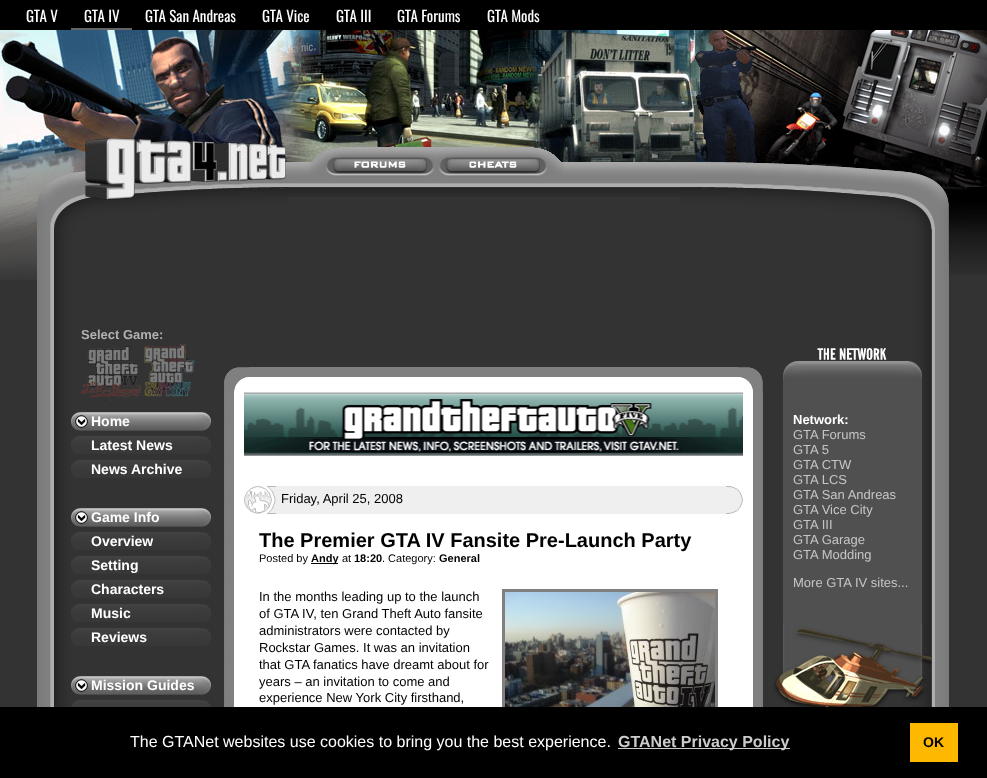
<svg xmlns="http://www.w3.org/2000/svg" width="987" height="778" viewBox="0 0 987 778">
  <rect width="100%" height="100%" fill="#ffffff"/>
  <rect x="0" y="0" width="987" height="30" fill="#000000"/>
  <text x="26" y="22" font-family="Oswald" font-size="15" fill="#ffffff">GTA V</text>
  <rect x="71" y="28" width="61" height="2" fill="#646464"/>
  <text x="84" y="22" font-family="Oswald" font-size="15" fill="#ffffff">GTA IV</text>
  <text x="145" y="22" font-family="Oswald" font-size="15" fill="#ffffff">GTA San Andreas</text>
  <text x="262" y="22" font-family="Oswald" font-size="15" fill="#ffffff">GTA Vice</text>
  <text x="336" y="22" font-family="Oswald" font-size="15" fill="#ffffff">GTA III</text>
  <text x="397" y="22" font-family="Oswald" font-size="15" fill="#ffffff">GTA Forums</text>
  <text x="487" y="22" font-family="Oswald" font-size="15" fill="#ffffff">GTA Mods</text>
  <image x="292" y="30" width="421" height="132" href="img1.png"/>
  <image x="292" y="31" width="40" height="131" href="img2.png"/>
  <image x="292" y="162" width="403" height="25" href="img3.png"/>
  <image x="0" y="30" width="292" height="157" href="img4.png"/>
  <image x="309" y="147" width="125" height="30" href="img5.png"/>
  <image x="434" y="147" width="130" height="30" href="img6.png"/>
  <image x="695" y="30" width="292" height="157" href="img7.png"/>
  <rect x="73" y="187" width="840" height="520" fill="#333333"/>
  <image x="288" y="188" width="392" height="9" href="img8.png"/>
  <image x="913" y="275" width="74" height="432" href="img9.png"/>
  <image x="0" y="280" width="73" height="427" href="img10.png"/>
  <image x="680" y="187" width="307" height="88" href="img11.png"/>
  <image x="0" y="187" width="288" height="93" href="img12.png"/>
  <text x="81" y="339" font-family="Liberation Sans" font-size="13" font-weight="bold" fill="#b1b1b1">Select Game:</text>
  <image x="81" y="346" width="60" height="55" href="img13.png"/>
  <image x="142" y="344" width="57" height="54" href="img14.png"/>
  <image x="71" y="412" width="140" height="19" href="img15.png"/>
  <text x="91" y="426" font-family="Liberation Sans" font-size="14" font-weight="bold" fill="#ffffff">Home</text>
  <image x="71" y="436" width="140" height="18" href="img16.png"/>
  <text x="91" y="450" font-family="Liberation Sans" font-size="14" font-weight="bold" fill="#ffffff">Latest News</text>
  <image x="71" y="460" width="140" height="18" href="img16.png"/>
  <text x="91" y="474" font-family="Liberation Sans" font-size="14" font-weight="bold" fill="#ffffff">News Archive</text>
  <image x="71" y="508" width="140" height="19" href="img15.png"/>
  <text x="91" y="522" font-family="Liberation Sans" font-size="14" font-weight="bold" fill="#ffffff">Game Info</text>
  <image x="71" y="532" width="140" height="18" href="img16.png"/>
  <text x="91" y="546" font-family="Liberation Sans" font-size="14" font-weight="bold" fill="#ffffff">Overview</text>
  <image x="71" y="556" width="140" height="18" href="img16.png"/>
  <text x="91" y="570" font-family="Liberation Sans" font-size="14" font-weight="bold" fill="#ffffff">Setting</text>
  <image x="71" y="580" width="140" height="18" href="img16.png"/>
  <text x="91" y="594" font-family="Liberation Sans" font-size="14" font-weight="bold" fill="#ffffff">Characters</text>
  <image x="71" y="604" width="140" height="18" href="img16.png"/>
  <text x="91" y="618" font-family="Liberation Sans" font-size="14" font-weight="bold" fill="#ffffff">Music</text>
  <image x="71" y="628" width="140" height="18" href="img16.png"/>
  <text x="91" y="642" font-family="Liberation Sans" font-size="14" font-weight="bold" fill="#ffffff">Reviews</text>
  <image x="71" y="676" width="140" height="19" href="img15.png"/>
  <text x="91" y="690" font-family="Liberation Sans" font-size="14" font-weight="bold" fill="#ffffff">Mission Guides</text>
  <image x="71" y="700" width="140" height="7" href="img17.png"/>
  <rect x="239" y="377" width="509" height="330" fill="#ffffff"/>
  <rect x="249" y="367" width="489" height="10" fill="#808080"/>
  <image x="224" y="392" width="15" height="315" href="img18.png"/>
  <image x="748" y="392" width="15" height="315" href="img19.png"/>
  <image x="224" y="367" width="25" height="25" href="img20.png"/>
  <image x="738" y="367" width="25" height="25" href="img21.png"/>
  <image x="244" y="392" width="499" height="64" href="img22.png"/>
  <rect x="276" y="486" width="450" height="28" fill="#efefef"/>
  <image x="244" y="486" width="32" height="28" href="img23.png"/>
  <text x="281" y="503" font-family="Liberation Sans" font-size="13" fill="#000000">Friday, April 25, 2008</text>
  <image x="726" y="486" width="17" height="28" href="img24.png"/>
  <text x="259" y="547" font-family="Liberation Sans" font-size="20" font-weight="bold" fill="#000000">The Premier GTA IV Fansite Pre-Launch Party</text>
  <text x="259" y="562" font-family="Liberation Sans" font-size="11" fill="#000000">Posted by</text>
  <rect x="311" y="563" width="27" height="1" fill="#000000"/>
  <text x="311" y="562" font-family="Liberation Sans" font-size="11" font-weight="bold" fill="#000000">Andy</text>
  <text x="342" y="562" font-family="Liberation Sans" font-size="11" fill="#000000">at</text>
  <text x="354" y="562" font-family="Liberation Sans" font-size="11" font-weight="bold" fill="#000000">18:20</text>
  <text x="382" y="562" font-family="Liberation Sans" font-size="11" fill="#000000">. Category:</text>
  <text x="439" y="562" font-family="Liberation Sans" font-size="11" font-weight="bold" fill="#000000">General</text>
  <text x="259" y="601" font-family="Liberation Sans" font-size="13" fill="#000000">In the months leading up to the launch</text>
  <text x="259" y="618" font-family="Liberation Sans" font-size="13" fill="#000000">of GTA IV, ten Grand Theft Auto fansite</text>
  <text x="259" y="635" font-family="Liberation Sans" font-size="13" fill="#000000">administrators were contacted by</text>
  <text x="259" y="652" font-family="Liberation Sans" font-size="13" fill="#000000">Rockstar Games. It was an invitation</text>
  <text x="259" y="669" font-family="Liberation Sans" font-size="13" fill="#000000">that GTA fanatics have dreamt about for</text>
  <text x="259" y="686" font-family="Liberation Sans" font-size="13" fill="#000000">years – an invitation to come and</text>
  <text x="259" y="702" font-family="Liberation Sans" font-size="13" fill="#000000">experience New York City firsthand,</text>
  <rect x="502" y="589" width="216" height="118" fill="#808080"/>
  <image x="505" y="592" width="210" height="115" href="img25.png"/>
  <image x="783" y="348" width="139" height="31" href="img26.png"/>
  <rect x="783" y="379" width="139" height="244" fill="#505050"/>
  <text x="793" y="424" font-family="Liberation Sans" font-size="13" font-weight="bold" fill="#ffffff">Network:</text>
  <text x="793" y="439" font-family="Liberation Sans" font-size="13" fill="#c6c6c6">GTA Forums</text>
  <text x="793" y="454" font-family="Liberation Sans" font-size="13" fill="#c6c6c6">GTA 5</text>
  <text x="793" y="469" font-family="Liberation Sans" font-size="13" fill="#c6c6c6">GTA CTW</text>
  <text x="793" y="484" font-family="Liberation Sans" font-size="13" fill="#c6c6c6">GTA LCS</text>
  <text x="793" y="499" font-family="Liberation Sans" font-size="13" fill="#c6c6c6">GTA San Andreas</text>
  <text x="793" y="514" font-family="Liberation Sans" font-size="13" fill="#c6c6c6">GTA Vice City</text>
  <text x="793" y="529" font-family="Liberation Sans" font-size="13" fill="#c6c6c6">GTA III</text>
  <text x="793" y="544" font-family="Liberation Sans" font-size="13" fill="#c6c6c6">GTA Garage</text>
  <text x="793" y="559" font-family="Liberation Sans" font-size="13" fill="#c6c6c6">GTA Modding</text>
  <text x="793" y="587" font-family="Liberation Sans" font-size="13" fill="#c6c6c6">More GTA IV sites...</text>
  <image x="773" y="623" width="159" height="84" href="img27.png"/>
  <rect x="0" y="707" width="987" height="71" fill="#000000"/>
  <text x="130" y="747" font-family="Liberation Sans" font-size="16" fill="#ffffff">The GTANet websites use cookies to bring you the best experience.</text>
  <rect x="618" y="748" width="172" height="1" fill="#cccccc"/>
  <text x="618" y="747" font-family="Liberation Sans" font-size="16" font-weight="bold" fill="#cccccc">GTANet Privacy Policy</text>
  <rect x="910" y="723" width="48" height="39" fill="#ffb800"/>
  <text x="923" y="747" font-family="Liberation Sans" font-size="14" font-weight="bold" fill="#000000">OK</text>
</svg>
